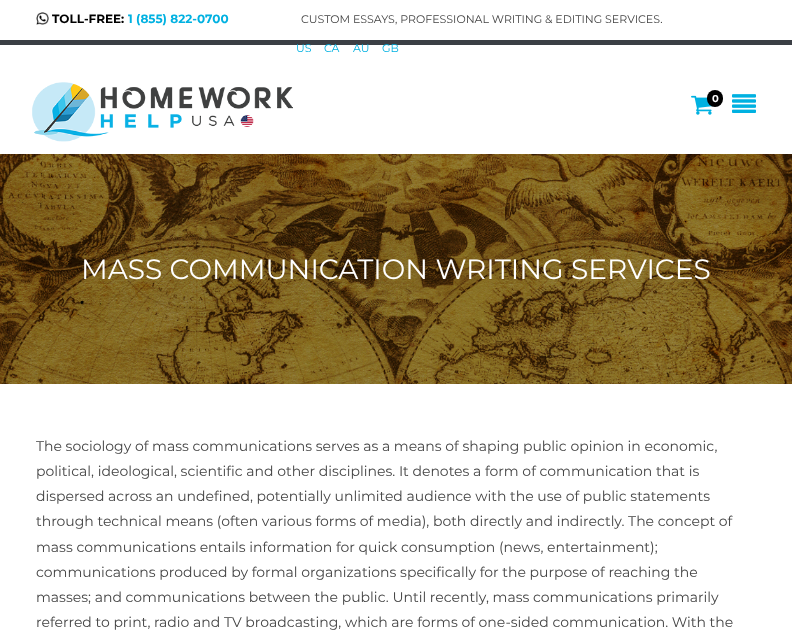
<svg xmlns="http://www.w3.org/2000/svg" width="792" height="640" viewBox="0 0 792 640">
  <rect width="100%" height="100%" fill="#ffffff"/>
  <rect x="0" y="40" width="792" height="5" fill="#3b3f45"/>
  <image x="36" y="12" width="13" height="13" href="img1.png"/>
  <text x="52" y="23" font-family="Montserrat" font-size="12" font-weight="bold" fill="#000000">TOLL-FREE:</text>
  <text x="128" y="23" font-family="Montserrat" font-size="12" font-weight="bold" fill="#00b1e1">1 (855) 822-0700</text>
  <text x="301" y="23" font-family="Montserrat" font-size="11" fill="#444444">CUSTOM ESSAYS, PROFESSIONAL WRITING &amp; EDITING SERVICES.</text>
  <text x="296" y="52" font-family="Montserrat" font-size="11" fill="#00b1e1">US</text>
  <text x="324" y="52" font-family="Montserrat" font-size="11" fill="#00b1e1">CA</text>
  <text x="353" y="52" font-family="Montserrat" font-size="11" fill="#00b1e1">AU</text>
  <text x="382" y="52" font-family="Montserrat" font-size="11" fill="#00b1e1">GB</text>
  <image x="32" y="82" width="261" height="60" href="img2.png"/>
  <image x="691" y="95" width="22" height="20" href="img3.png"/>
  <rect x="707" y="90" width="16" height="17" rx="8" fill="#000000"/>
  <text x="712" y="102" font-family="Montserrat" font-size="10" font-weight="bold" fill="#ffffff">0</text>
  <image x="732" y="94" width="24" height="19" href="img4.png"/>
  <image x="0" y="154" width="792" height="230" href="img5.png"/>
  <text x="81" y="279" font-family="Montserrat" font-size="28" fill="#ffffff">MASS COMMUNICATION WRITING SERVICES</text>
  <text x="36" y="451" font-family="Montserrat" font-size="14" fill="#444444">The sociology of mass communications serves as a means of shaping public opinion in economic,</text>
  <text x="36" y="476" font-family="Montserrat" font-size="14" fill="#444444">political, ideological, scientific and other disciplines. It denotes a form of communication that is</text>
  <text x="36" y="501" font-family="Montserrat" font-size="14" fill="#444444">dispersed across an undefined, potentially unlimited audience with the use of public statements</text>
  <text x="36" y="526" font-family="Montserrat" font-size="14" fill="#444444">through technical means (often various forms of media), both directly and indirectly. The concept of</text>
  <text x="36" y="552" font-family="Montserrat" font-size="14" fill="#444444">mass communications entails information for quick consumption (news, entertainment);</text>
  <text x="36" y="577" font-family="Montserrat" font-size="14" fill="#444444">communications produced by formal organizations specifically for the purpose of reaching the</text>
  <text x="36" y="602" font-family="Montserrat" font-size="14" fill="#444444">masses; and communications between the public. Until recently, mass communications primarily</text>
  <text x="36" y="627" font-family="Montserrat" font-size="14" fill="#444444">referred to print, radio and TV broadcasting, which are forms of one-sided communication. With the</text>
</svg>
